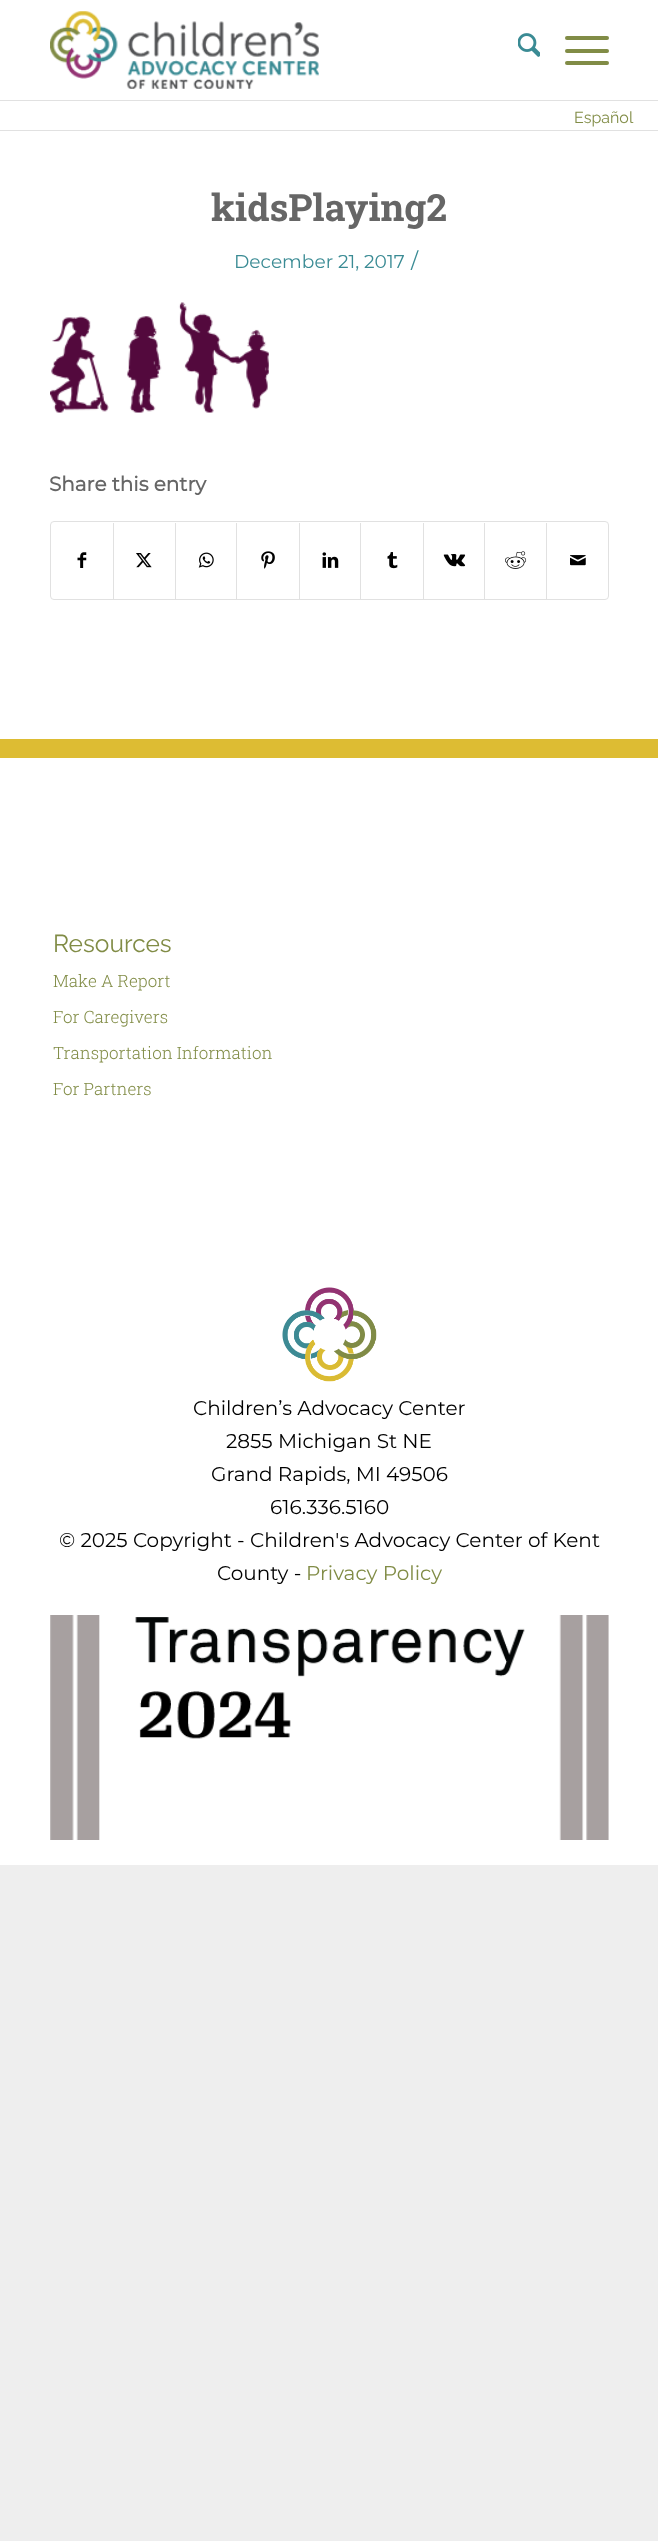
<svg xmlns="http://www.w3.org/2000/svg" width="658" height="2541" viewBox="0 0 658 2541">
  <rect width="100%" height="100%" fill="#eeeeee"/>
  <rect x="0" y="0" width="658" height="100" fill="#ffffff"/>
  <rect x="0" y="100" width="658" height="1" fill="#e1e1e1"/>
  <image x="50" y="11" width="269" height="78" href="img1.png"/>
  <image x="518" y="33" width="22" height="24" href="img2.png"/>
  <rect x="565" y="49" width="44" height="4" rx="2" fill="#818c46"/>
  <rect x="565" y="36" width="44" height="4" rx="2" fill="#818c46"/>
  <rect x="565" y="61" width="44" height="4" rx="2" fill="#818c46"/>
  <rect x="0" y="101" width="658" height="1764" fill="#ffffff"/>
  <rect x="0" y="130" width="658" height="1" fill="#e1e1e1"/>
  <text x="574" y="123" font-family="Raleway" font-size="16" fill="#818c46">Español</text>
  <text x="211" y="221" font-family="Roboto Slab" font-size="37.5" font-weight="bold" fill="#666666">kidsPlaying2</text>
  <text x="234" y="268" font-family="Montserrat" font-size="18.6" font-weight="100" fill="#3a8b94">December 21, 2017</text>
  <text x="411" y="268" font-family="Montserrat" font-size="21" font-weight="100" fill="#3a8b94">/</text>
  <image x="50" y="302" width="219" height="111" href="img3.png"/>
  <text x="49" y="491" font-family="Montserrat" font-size="20" font-weight="bold" fill="#666666">Share this entry</text>
  <rect x="50.5" y="521.5" width="558" height="78" rx="3.5" fill="none" stroke="#e1e1e1"/>
  <image x="77" y="552" width="10" height="16" href="img4.png"/>
  <rect x="113" y="523" width="1" height="76" fill="#e1e1e1"/>
  <image x="136" y="553" width="16" height="15" href="img5.png"/>
  <rect x="175" y="523" width="1" height="76" fill="#e1e1e1"/>
  <image x="198" y="552" width="16" height="16" href="img6.png"/>
  <rect x="236" y="523" width="1" height="76" fill="#e1e1e1"/>
  <image x="261" y="551" width="14" height="18" href="img7.png"/>
  <rect x="299" y="523" width="1" height="76" fill="#e1e1e1"/>
  <image x="322" y="552" width="17" height="16" href="img8.png"/>
  <rect x="360" y="523" width="1" height="76" fill="#e1e1e1"/>
  <image x="387" y="552" width="11" height="17" href="img9.png"/>
  <rect x="423" y="523" width="1" height="76" fill="#e1e1e1"/>
  <image x="443" y="554" width="23" height="13" href="img10.png"/>
  <rect x="484" y="523" width="1" height="76" fill="#e1e1e1"/>
  <image x="505" y="551" width="22" height="18" href="img11.png"/>
  <rect x="546" y="523" width="1" height="76" fill="#e1e1e1"/>
  <image x="570" y="555" width="16" height="11" href="img12.png"/>
  <rect x="0" y="739" width="658" height="19" fill="#ddbc33"/>
  <text x="53" y="952" font-family="Raleway" font-size="24.5" fill="#818c46">Resources</text>
  <text x="53" y="987" font-family="Roboto Slab" font-size="17" font-weight="300" fill="#818c46">Make A Report</text>
  <text x="53" y="1023" font-family="Roboto Slab" font-size="17" font-weight="300" fill="#818c46">For Caregivers</text>
  <text x="53" y="1059" font-family="Roboto Slab" font-size="17" font-weight="300" fill="#818c46">Transportation Information</text>
  <text x="53" y="1095" font-family="Roboto Slab" font-size="17" font-weight="300" fill="#818c46">For Partners</text>
  <image x="282" y="1287" width="95" height="95" href="img13.png"/>
  <text x="193" y="1415" font-family="Montserrat" font-size="20" font-weight="100" fill="#000000">Children’s Advocacy Center</text>
  <text x="226" y="1448" font-family="Montserrat" font-size="20" font-weight="100" fill="#000000">2855 Michigan St NE</text>
  <text x="211" y="1481" font-family="Montserrat" font-size="20" font-weight="100" fill="#000000">Grand Rapids, MI 49506</text>
  <text x="270" y="1514" font-family="Montserrat" font-size="20" font-weight="100" fill="#000000">616.336.5160</text>
  <text x="59" y="1547" font-family="Montserrat" font-size="20" font-weight="100" fill="#000000">© 2025 Copyright - Children's Advocacy Center of Kent</text>
  <text x="217" y="1580" font-family="Montserrat" font-size="20" font-weight="100" fill="#000000">County -</text>
  <text x="306" y="1580" font-family="Montserrat" font-size="20" font-weight="100" fill="#818c46">Privacy Policy</text>
  <image x="50" y="1615" width="559" height="225" href="img14.png"/>
</svg>
